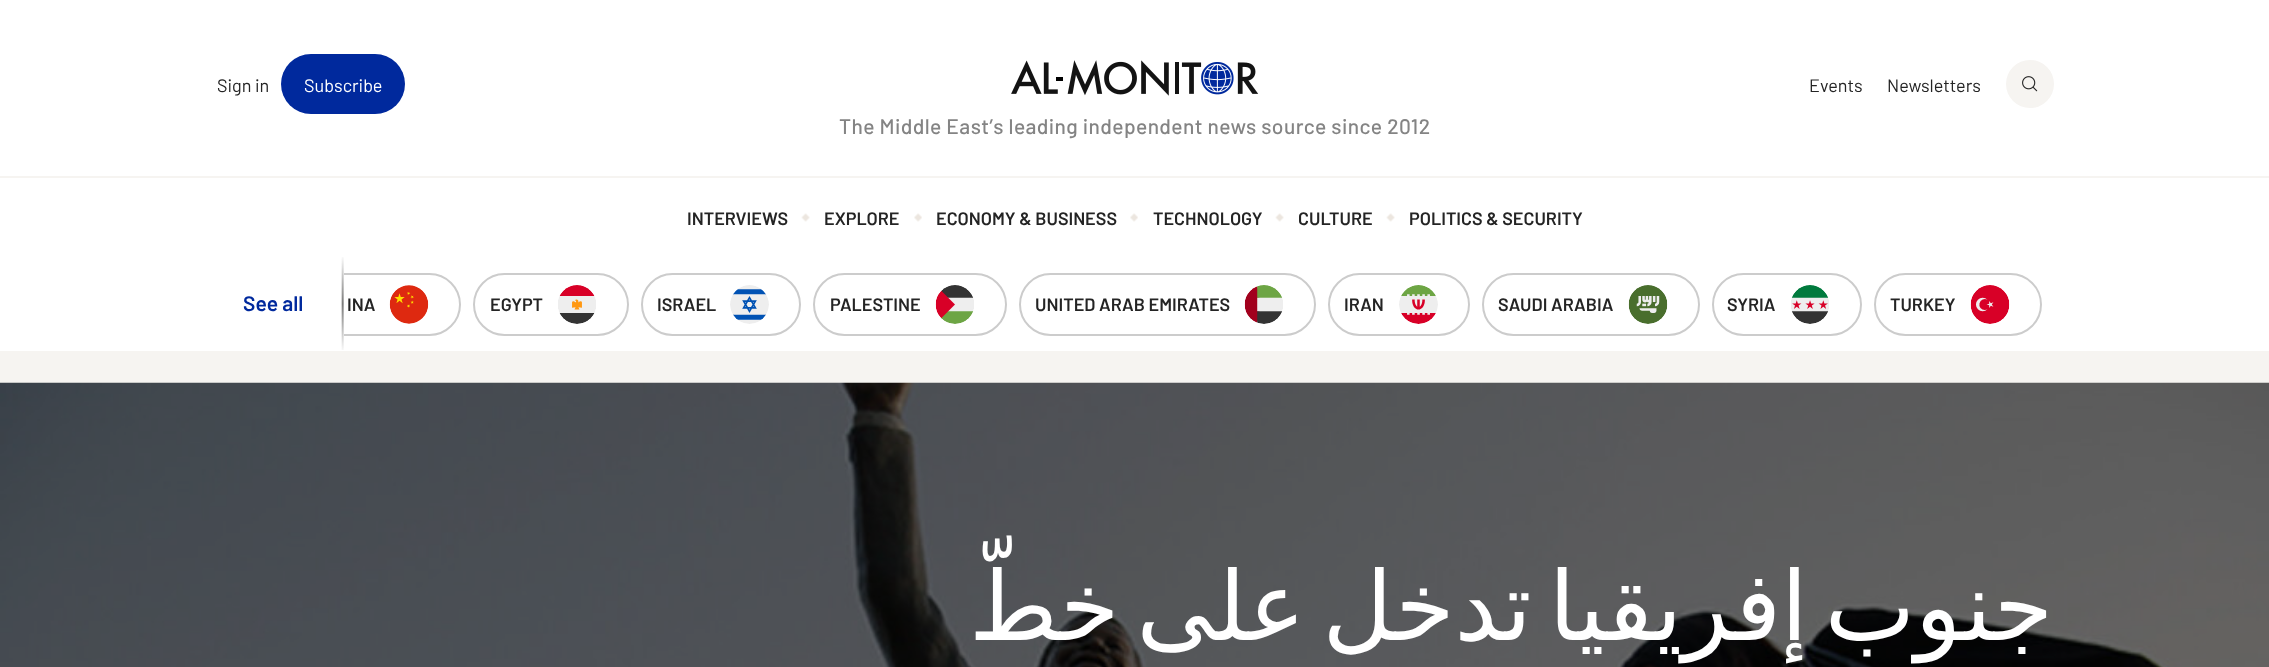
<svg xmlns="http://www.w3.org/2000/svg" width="2269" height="667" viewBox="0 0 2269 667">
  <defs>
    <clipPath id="clip1"><rect x="344" y="273" width="1698" height="63"/></clipPath>
  </defs>
  <rect width="100%" height="100%" fill="#f6f4f1"/>
  <rect x="0" y="0" width="2269" height="351" fill="#ffffff"/>
  <text x="217" y="92" font-family="Barlow" font-size="18" fill="#242424">Sign in</text>
  <rect x="281" y="54" width="124" height="60" rx="30" fill="#00299d"/>
  <text x="304" y="92" font-family="Barlow" font-size="18" fill="#ffffff">Subscribe</text>
  <image x="1011" y="60" width="248" height="36" href="img1.png"/>
  <text x="1809" y="92" font-family="Barlow" font-size="18" fill="#242424">Events</text>
  <text x="1887" y="92" font-family="Barlow" font-size="18" fill="#242424">Newsletters</text>
  <circle cx="2030" cy="84" r="24" fill="#f6f4f1"/>
  <image x="2022" y="76" width="16" height="16" href="img2.png"/>
  <rect x="0" y="176" width="2269" height="2" fill="#f6f4f1"/>
  <text x="839" y="134" font-family="Barlow" font-size="21" font-weight="500" letter-spacing="0.42" fill="#848484">The Middle Eastʼs leading independent news source since 2012</text>
  <text x="687" y="225" font-family="Barlow" font-size="18" font-weight="600" fill="#242424">INTERVIEWS</text>
  <image x="801" y="213" width="9" height="9" href="img3.png"/>
  <text x="824" y="225" font-family="Barlow" font-size="18" font-weight="600" fill="#242424">EXPLORE</text>
  <image x="914" y="213" width="8" height="9" href="img4.png"/>
  <text x="936" y="225" font-family="Barlow" font-size="18" font-weight="600" fill="#242424">ECONOMY &amp; BUSINESS</text>
  <image x="1130" y="213" width="8" height="9" href="img4.png"/>
  <text x="1153" y="225" font-family="Barlow" font-size="18" font-weight="600" fill="#242424">TECHNOLOGY</text>
  <image x="1275" y="213" width="9" height="9" href="img3.png"/>
  <text x="1298" y="225" font-family="Barlow" font-size="18" font-weight="600" fill="#242424">CULTURE</text>
  <image x="1386" y="213" width="9" height="9" href="img3.png"/>
  <text x="1409" y="225" font-family="Barlow" font-size="18" font-weight="600" fill="#242424">POLITICS &amp; SECURITY</text>
  <text x="243" y="311" font-family="Barlow" font-size="21" font-weight="600" fill="#00299d">See all</text>
  <image x="341" y="257" width="3" height="93" href="img5.png"/>
  <g clip-path="url(#clip1)">
    <rect x="310" y="274" width="150" height="61" rx="30.5" fill="none" stroke="#cccccc" stroke-width="2"/>
  </g>
  <text x="347" y="311" font-family="Barlow" font-size="18" font-weight="600" fill="#242424">INA</text>
  <image x="389" y="285" width="40" height="39" href="img6.png"/>
  <rect x="474" y="274" width="154" height="61" rx="30.5" fill="none" stroke="#cccccc" stroke-width="2"/>
  <text x="490" y="311" font-family="Barlow" font-size="18" font-weight="600" fill="#242424">EGYPT</text>
  <image x="558" y="285" width="38" height="39" href="img7.png"/>
  <rect x="642" y="274" width="158" height="61" rx="30.5" fill="none" stroke="#cccccc" stroke-width="2"/>
  <text x="657" y="311" font-family="Barlow" font-size="18" font-weight="600" fill="#242424">ISRAEL</text>
  <image x="730" y="285" width="39" height="39" href="img8.png"/>
  <rect x="814" y="274" width="192" height="61" rx="30.5" fill="none" stroke="#cccccc" stroke-width="2"/>
  <text x="830" y="311" font-family="Barlow" font-size="18" font-weight="600" fill="#242424">PALESTINE</text>
  <image x="935" y="285" width="39" height="39" href="img9.png"/>
  <rect x="1020" y="274" width="295" height="61" rx="30.5" fill="none" stroke="#cccccc" stroke-width="2"/>
  <text x="1035" y="311" font-family="Barlow" font-size="18" font-weight="600" fill="#242424">UNITED ARAB EMIRATES</text>
  <image x="1244" y="285" width="39" height="39" href="img10.png"/>
  <rect x="1329" y="274" width="140" height="61" rx="30.5" fill="none" stroke="#cccccc" stroke-width="2"/>
  <text x="1344" y="311" font-family="Barlow" font-size="18" font-weight="600" fill="#242424">IRAN</text>
  <image x="1399" y="285" width="39" height="39" href="img11.png"/>
  <rect x="1483" y="274" width="216" height="61" rx="30.5" fill="none" stroke="#cccccc" stroke-width="2"/>
  <text x="1498" y="311" font-family="Barlow" font-size="18" font-weight="600" fill="#242424">SAUDI ARABIA</text>
  <image x="1628" y="285" width="40" height="39" href="img12.png"/>
  <rect x="1713" y="274" width="148" height="61" rx="30.5" fill="none" stroke="#cccccc" stroke-width="2"/>
  <text x="1727" y="311" font-family="Barlow" font-size="18" font-weight="600" fill="#242424">SYRIA</text>
  <image x="1791" y="285" width="38" height="39" href="img13.png"/>
  <rect x="1875" y="274" width="166" height="61" rx="30.5" fill="none" stroke="#cccccc" stroke-width="2"/>
  <text x="1890" y="311" font-family="Barlow" font-size="18" font-weight="600" fill="#242424">TURKEY</text>
  <image x="1970" y="285" width="40" height="39" href="img14.png"/>
  <image x="0" y="382" width="2269" height="285" href="img15.png"/>
  <text x="2053" y="640" word-spacing="-13.5" font-family="DejaVu Sans" font-size="96" direction="rtl" fill="#ffffff">جنوب إفريقيا تدخل على خطّ</text>
</svg>
